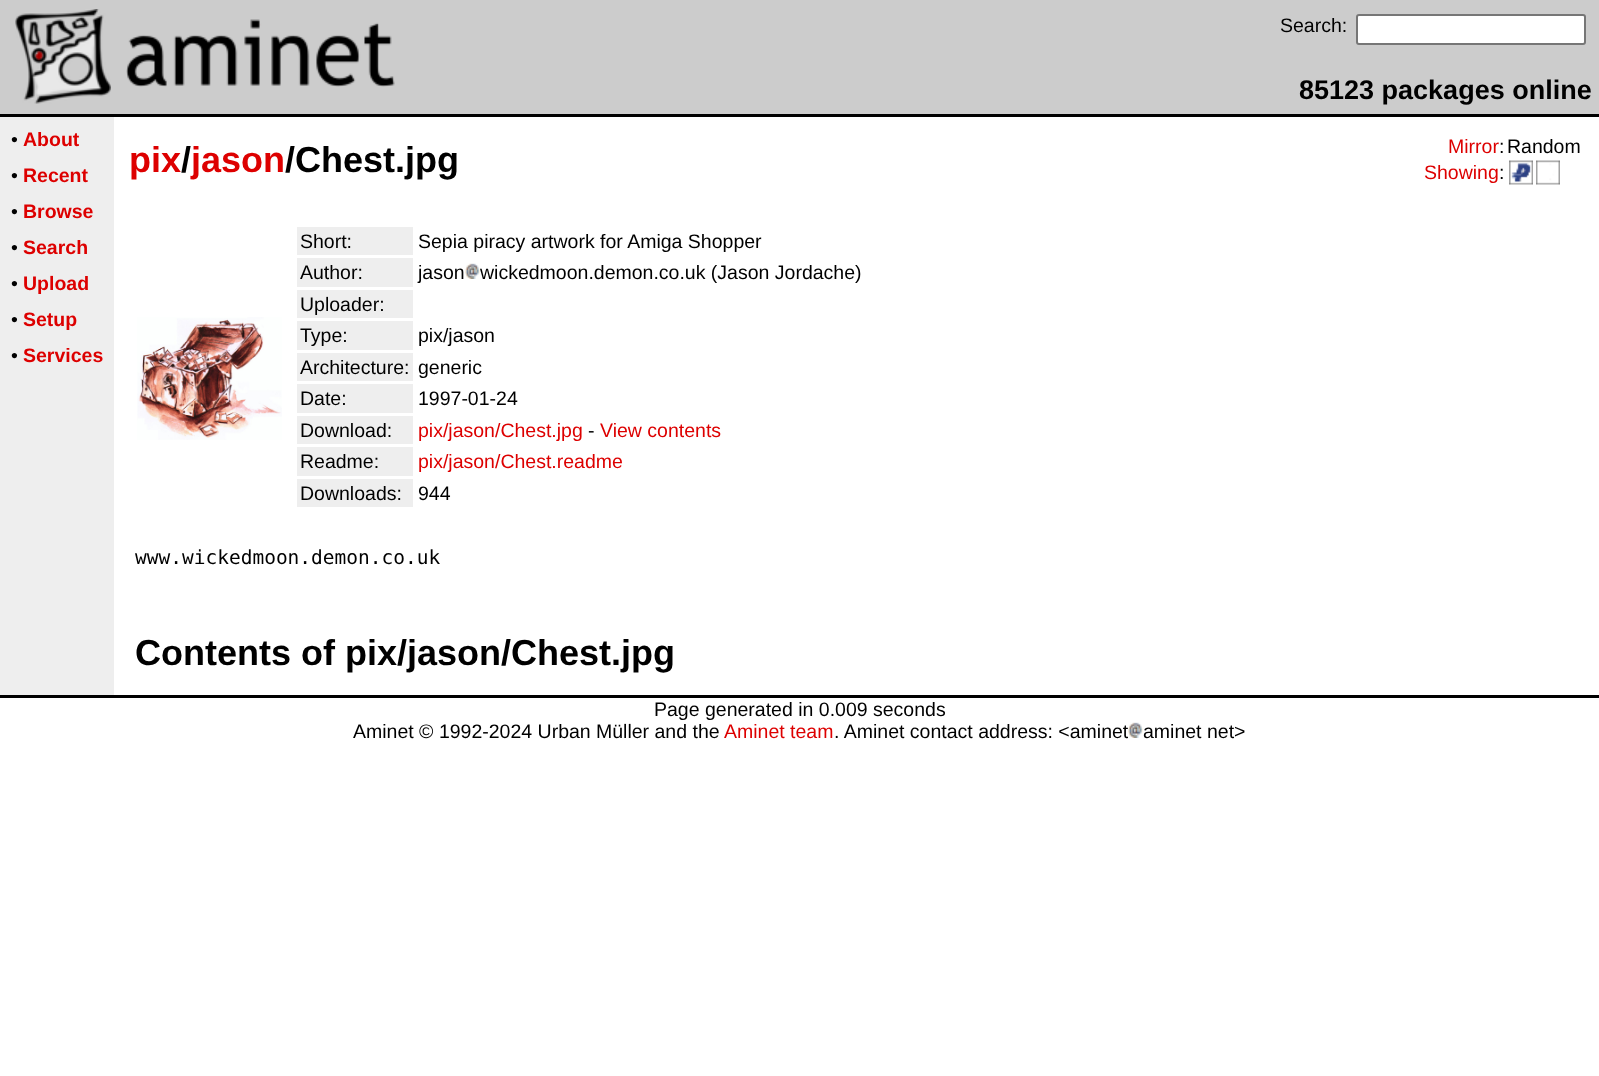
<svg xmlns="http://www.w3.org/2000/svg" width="1599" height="1076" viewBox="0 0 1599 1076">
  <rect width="100%" height="100%" fill="#ffffff"/>
  <rect x="0" y="0" width="1599" height="114" fill="#cccccc"/>
  <image x="15" y="9" width="96" height="95" href="img1.png"/>
  <image x="126" y="19" width="269" height="68" href="img2.png"/>
  <text x="1280" y="32" font-family="Liberation Sans" font-size="19.5" fill="#000000">Search:</text>
  <rect x="1357" y="15" width="228" height="29" rx="2" fill="#ffffff" stroke="#767676" stroke-width="2"/>
  <text x="1299" y="99" font-family="Liberation Sans" font-size="27" font-weight="bold" fill="#000000">85123 packages online</text>
  <rect x="0" y="114" width="1599" height="3" fill="#000000"/>
  <rect x="0" y="117" width="114" height="578" fill="#eeeeee"/>
  <text x="11" y="146" font-family="Liberation Sans" font-size="19.5" fill="#000000">•</text>
  <text x="23" y="146" font-family="Liberation Sans" font-size="19.5" font-weight="bold" fill="#dd0000">About</text>
  <text x="11" y="182" font-family="Liberation Sans" font-size="19.5" fill="#000000">•</text>
  <text x="23" y="182" font-family="Liberation Sans" font-size="19.5" font-weight="bold" fill="#dd0000">Recent</text>
  <text x="11" y="218" font-family="Liberation Sans" font-size="19.5" fill="#000000">•</text>
  <text x="23" y="218" font-family="Liberation Sans" font-size="19.5" font-weight="bold" fill="#dd0000">Browse</text>
  <text x="11" y="254" font-family="Liberation Sans" font-size="19.5" fill="#000000">•</text>
  <text x="23" y="254" font-family="Liberation Sans" font-size="19.5" font-weight="bold" fill="#dd0000">Search</text>
  <text x="11" y="290" font-family="Liberation Sans" font-size="19.5" fill="#000000">•</text>
  <text x="23" y="290" font-family="Liberation Sans" font-size="19.5" font-weight="bold" fill="#dd0000">Upload</text>
  <text x="11" y="326" font-family="Liberation Sans" font-size="19.5" fill="#000000">•</text>
  <text x="23" y="326" font-family="Liberation Sans" font-size="19.5" font-weight="bold" fill="#dd0000">Setup</text>
  <text x="11" y="362" font-family="Liberation Sans" font-size="19.5" fill="#000000">•</text>
  <text x="23" y="362" font-family="Liberation Sans" font-size="19.5" font-weight="bold" fill="#dd0000">Services</text>
  <text x="129" y="172" font-family="Liberation Sans" font-size="36" font-weight="bold" fill="#dd0000">pix</text>
  <text x="181" y="172" font-family="Liberation Sans" font-size="36" font-weight="bold" fill="#000000">/</text>
  <text x="191" y="172" font-family="Liberation Sans" font-size="36" font-weight="bold" fill="#dd0000">jason</text>
  <text x="285" y="172" font-family="Liberation Sans" font-size="36" font-weight="bold" fill="#000000">/Chest.jpg</text>
  <text x="1448" y="153" font-family="Liberation Sans" font-size="19.5" fill="#dd0000">Mirror</text>
  <text x="1499" y="153" font-family="Liberation Sans" font-size="19.5" fill="#000000">:</text>
  <text x="1507" y="153" font-family="Liberation Sans" font-size="19.5" fill="#000000">Random</text>
  <text x="1424" y="179" font-family="Liberation Sans" font-size="19.5" fill="#dd0000">Showing</text>
  <text x="1499" y="179" font-family="Liberation Sans" font-size="19.5" fill="#000000">:</text>
  <image x="1509" y="160" width="24" height="25" href="img3.png"/>
  <image x="1536" y="160" width="24" height="25" href="img4.png"/>
  <image x="137" y="317" width="145" height="123" href="img5.png"/>
  <rect x="297" y="227" width="116" height="28" fill="#eeeeee"/>
  <text x="300" y="248" font-family="Liberation Sans" font-size="19.5" fill="#000000">Short:</text>
  <text x="418" y="248" font-family="Liberation Sans" font-size="19.5" fill="#000000">Sepia piracy artwork for Amiga Shopper</text>
  <rect x="297" y="258" width="116" height="29" fill="#eeeeee"/>
  <text x="300" y="279" font-family="Liberation Sans" font-size="19.5" fill="#000000">Author:</text>
  <text x="418" y="279" font-family="Liberation Sans" font-size="19.5" fill="#000000">jason</text>
  <image x="465" y="263" width="15" height="16" href="img6.png"/>
  <text x="480" y="279" font-family="Liberation Sans" font-size="19.5" fill="#000000">wickedmoon.demon.co.uk (Jason Jordache)</text>
  <rect x="297" y="290" width="116" height="28" fill="#eeeeee"/>
  <text x="300" y="311" font-family="Liberation Sans" font-size="19.5" fill="#000000">Uploader:</text>
  <rect x="297" y="321" width="116" height="29" fill="#eeeeee"/>
  <text x="300" y="342" font-family="Liberation Sans" font-size="19.5" fill="#000000">Type:</text>
  <text x="418" y="342" font-family="Liberation Sans" font-size="19.5" fill="#000000">pix/jason</text>
  <rect x="297" y="353" width="116" height="28" fill="#eeeeee"/>
  <text x="300" y="374" font-family="Liberation Sans" font-size="19.5" fill="#000000">Architecture:</text>
  <text x="418" y="374" font-family="Liberation Sans" font-size="19.5" fill="#000000">generic</text>
  <rect x="297" y="384" width="116" height="29" fill="#eeeeee"/>
  <text x="300" y="405" font-family="Liberation Sans" font-size="19.5" fill="#000000">Date:</text>
  <text x="418" y="405" font-family="Liberation Sans" font-size="19.5" fill="#000000">1997-01-24</text>
  <rect x="297" y="416" width="116" height="28" fill="#eeeeee"/>
  <text x="300" y="437" font-family="Liberation Sans" font-size="19.5" fill="#000000">Download:</text>
  <text x="418" y="437" font-family="Liberation Sans" font-size="19.5" fill="#dd0000">pix/jason/Chest.jpg</text>
  <text x="588" y="437" font-family="Liberation Sans" font-size="19.5" fill="#000000">-</text>
  <text x="600" y="437" font-family="Liberation Sans" font-size="19.5" fill="#dd0000">View contents</text>
  <rect x="297" y="447" width="116" height="29" fill="#eeeeee"/>
  <text x="300" y="468" font-family="Liberation Sans" font-size="19.5" fill="#000000">Readme:</text>
  <text x="418" y="468" font-family="Liberation Sans" font-size="19.5" fill="#dd0000">pix/jason/Chest.readme</text>
  <rect x="297" y="479" width="116" height="28" fill="#eeeeee"/>
  <text x="300" y="500" font-family="Liberation Sans" font-size="19.5" fill="#000000">Downloads:</text>
  <text x="418" y="500" font-family="Liberation Sans" font-size="19.5" fill="#000000">944</text>
  <text x="135" y="564" font-family="DejaVu Sans Mono" font-size="19.5" fill="#000000">www.wickedmoon.demon.co.uk</text>
  <text x="135" y="665" font-family="Liberation Sans" font-size="36" font-weight="bold" fill="#000000">Contents of pix/jason/Chest.jpg</text>
  <rect x="0" y="695" width="1599" height="3" fill="#000000"/>
  <text x="654" y="716" font-family="Liberation Sans" font-size="19.5" fill="#000000">Page generated in 0.009 seconds</text>
  <text x="353" y="738" font-family="Liberation Sans" font-size="19.5" fill="#000000">Aminet © 1992-2024 Urban</text>
  <text x="596" y="738" font-family="Liberation Sans" font-size="19.5" fill="#000000">Müller and the</text>
  <text x="724" y="738" font-family="Liberation Sans" font-size="19.5" fill="#dd0000">Aminet team</text>
  <text x="834" y="738" font-family="Liberation Sans" font-size="19.5" fill="#000000">. Aminet contact address: &lt;aminet</text>
  <image x="1128" y="722" width="15" height="16" href="img6.png"/>
  <text x="1143" y="738" font-family="Liberation Sans" font-size="19.5" fill="#000000">aminet net&gt;</text>
</svg>
